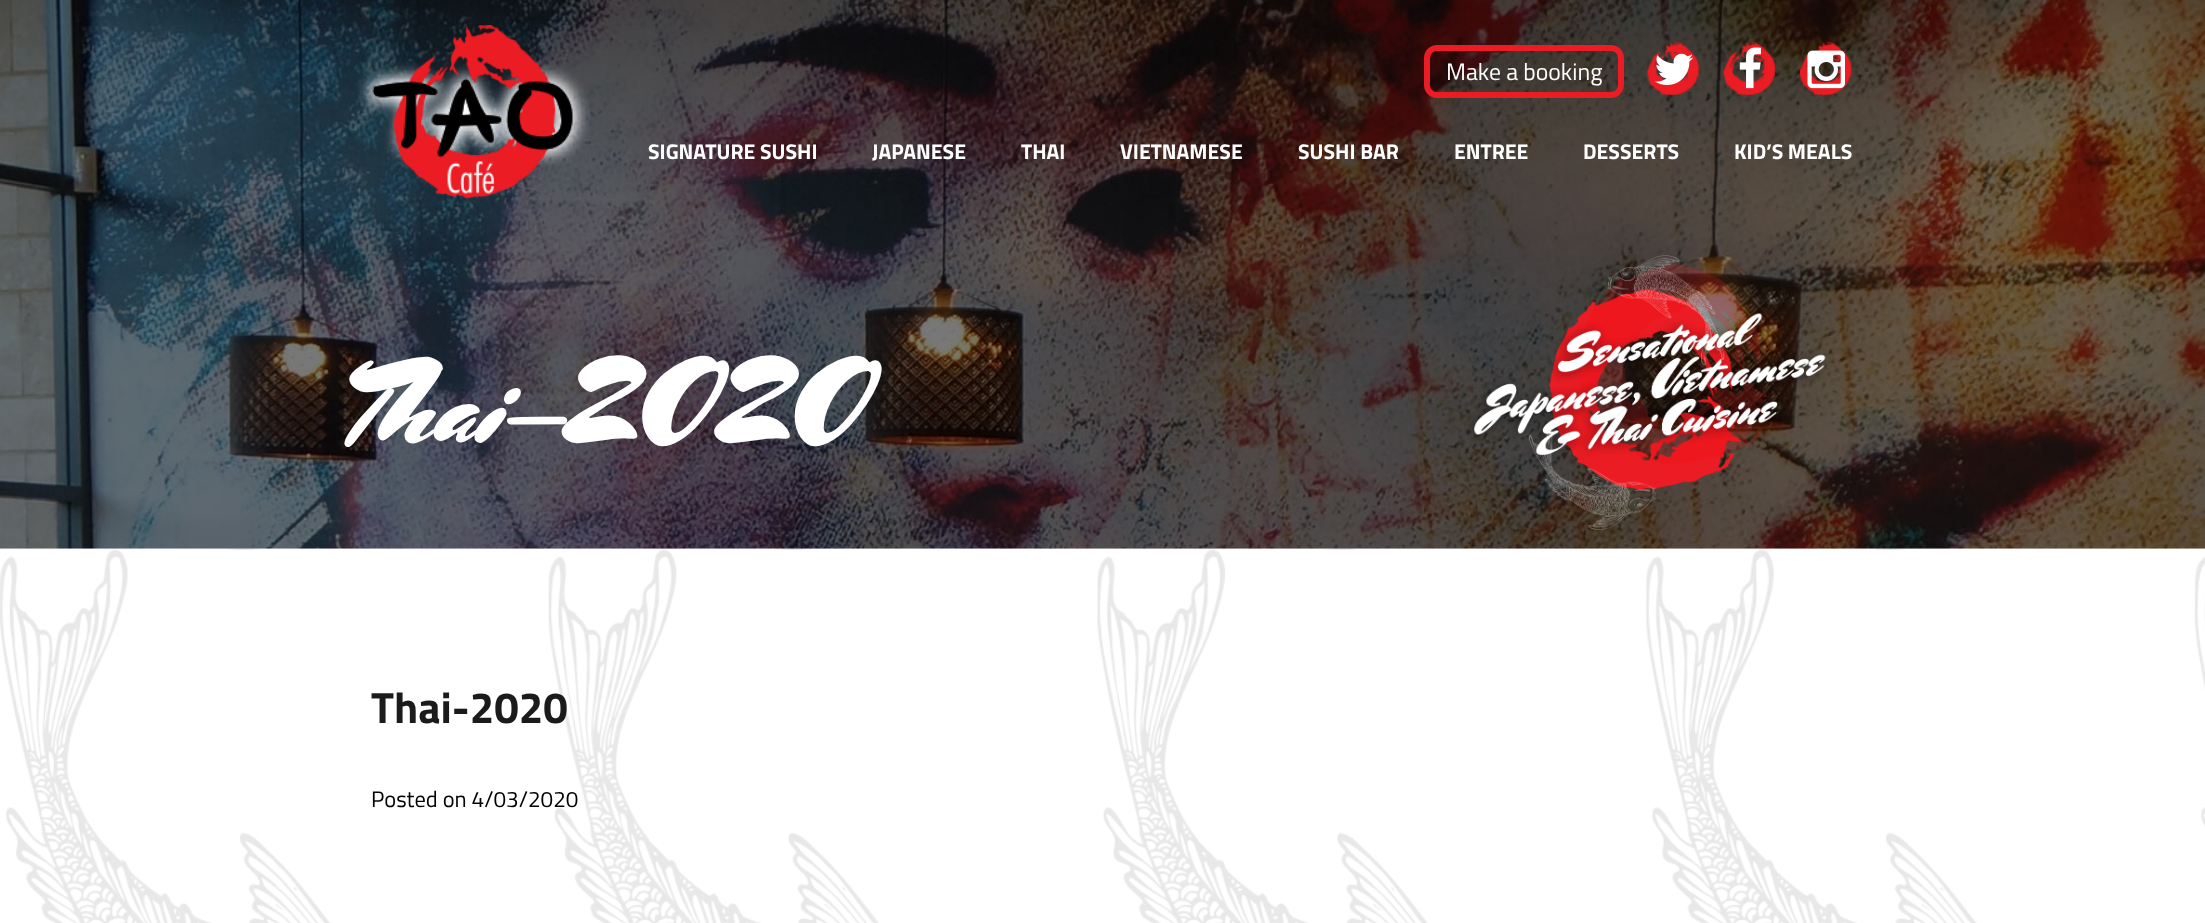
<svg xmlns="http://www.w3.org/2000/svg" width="2205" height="923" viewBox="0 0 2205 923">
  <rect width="100%" height="100%" fill="#ffffff"/>
  <image x="0" y="0" width="2205" height="549" href="img1.png"/>
  <image x="358" y="25" width="232" height="174" href="img2.png"/>
  <rect x="1427" y="48" width="194" height="47" rx="10" fill="none" stroke="#eb1c23" stroke-width="6"/>
  <text x="1446" y="80" font-family="Cairo" font-size="23.75" fill="#ffffff">Make a booking</text>
  <image x="1647" y="42" width="52" height="53" href="img3.png"/>
  <image x="1655" y="53" width="39" height="32" href="img4.png"/>
  <image x="1723" y="42" width="52" height="53" href="img5.png"/>
  <image x="1739" y="47" width="22" height="42" href="img6.png"/>
  <image x="1800" y="42" width="52" height="53" href="img7.png"/>
  <image x="1807" y="50" width="38" height="39" href="img8.png"/>
  <text x="648" y="159" font-family="Cairo" font-size="21.25" font-weight="bold" fill="#ffffff">SIGNATURE SUSHI</text>
  <text x="872" y="159" font-family="Cairo" font-size="21.25" font-weight="bold" fill="#ffffff">JAPANESE</text>
  <text x="1021" y="159" font-family="Cairo" font-size="21.25" font-weight="bold" fill="#ffffff">THAI</text>
  <text x="1120" y="159" font-family="Cairo" font-size="21.25" font-weight="bold" fill="#ffffff">VIETNAMESE</text>
  <text x="1298" y="159" font-family="Cairo" font-size="21.25" font-weight="bold" fill="#ffffff">SUSHI BAR</text>
  <text x="1454" y="159" font-family="Cairo" font-size="21.25" font-weight="bold" fill="#ffffff">ENTREE</text>
  <text x="1583" y="159" font-family="Cairo" font-size="21.25" font-weight="bold" fill="#ffffff">DESSERTS</text>
  <text x="1734" y="159" font-family="Cairo" font-size="21.25" font-weight="bold" fill="#ffffff">KID’S MEALS</text>
  <text x="353" y="440" font-family="Mrs Sheppards" font-size="112.5" fill="#ffffff">Thai-2020</text>
  <image x="1468" y="255" width="359" height="275" href="img9.png"/>
  <image x="0" y="548" width="2205" height="375" href="img10.png"/>
  <text x="371" y="723" font-family="Cairo" font-size="43.75" font-weight="bold" fill="#1b1b1b">Thai-2020</text>
  <text x="371" y="807" font-family="Cairo" font-size="22.5" fill="#000000">Posted on 4/03/2020</text>
</svg>
